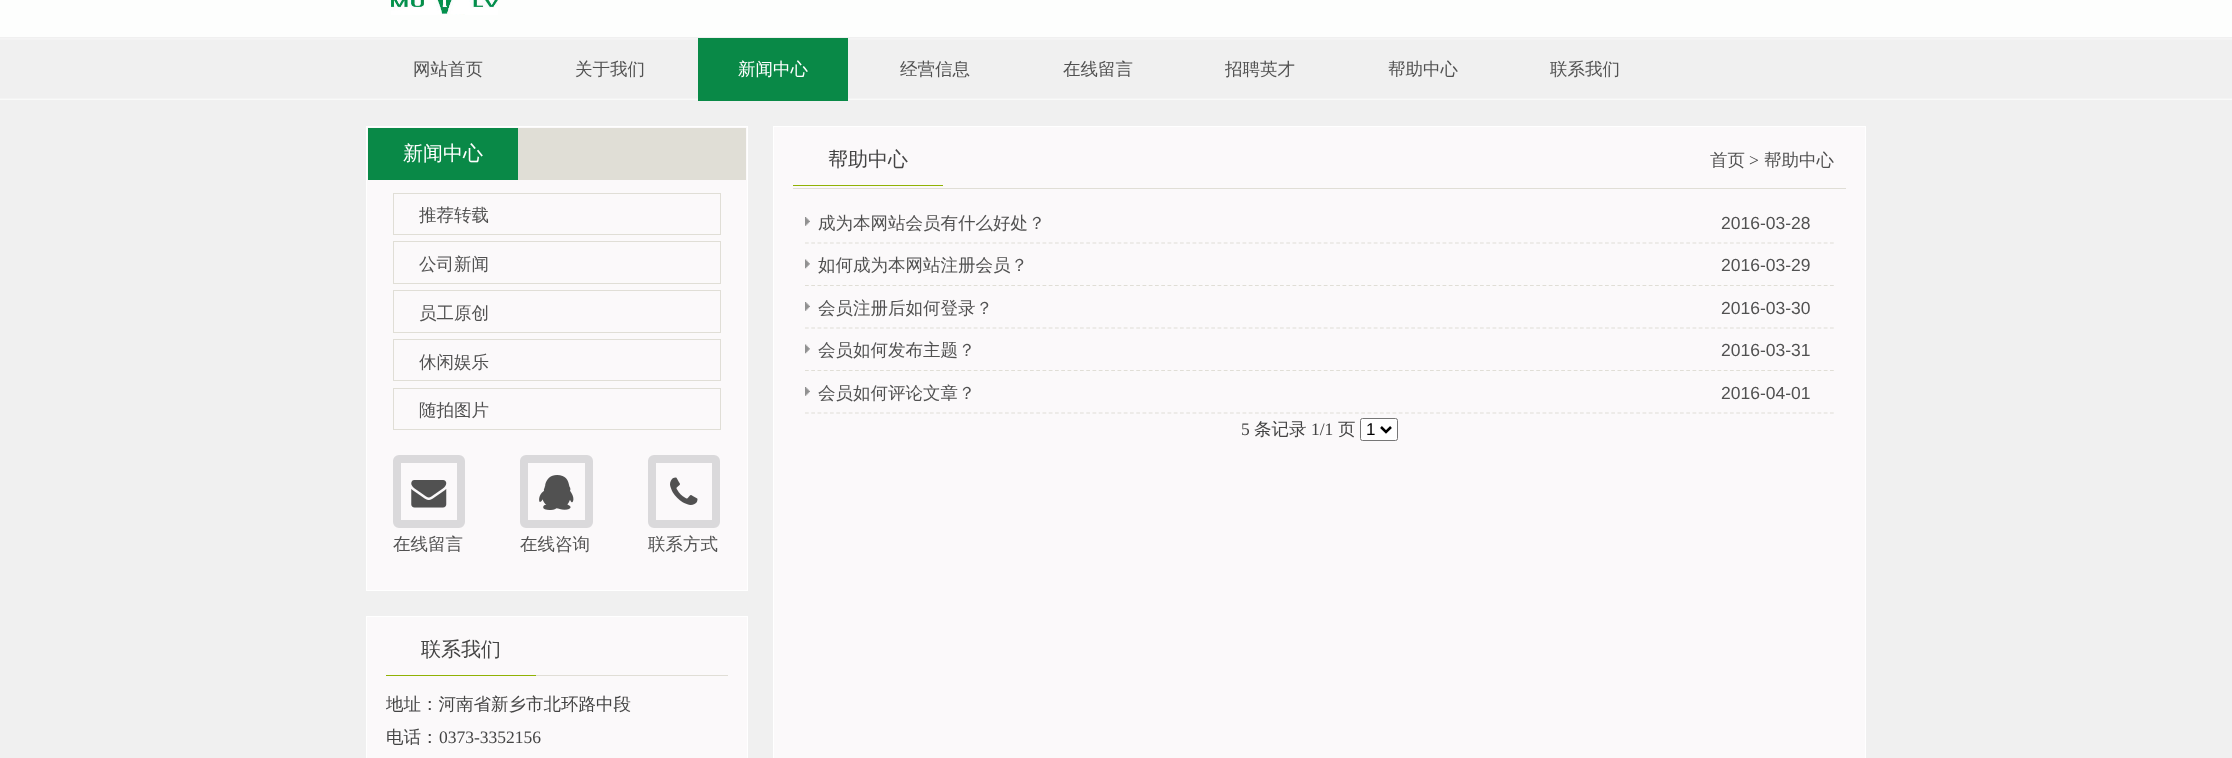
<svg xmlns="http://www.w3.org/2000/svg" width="2232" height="758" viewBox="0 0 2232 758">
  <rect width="100%" height="100%" fill="#f0f0f0"/>
  <rect x="0" y="0" width="2232" height="100" fill="#fdfefd"/>
  <image x="391" y="0" width="107" height="15" href="img1.png"/>
  <image x="0" y="37" width="2232" height="63" href="img2.png"/>
  <text x="413" y="75" font-family="WenQuanYi Zen Hei" font-size="17.5" font-weight="500" fill="#515151">网站首页</text>
  <text x="575" y="75" font-family="WenQuanYi Zen Hei" font-size="17.5" font-weight="500" fill="#515151">关于我们</text>
  <rect x="698" y="38" width="150" height="63" fill="#098947"/>
  <text x="738" y="75" font-family="WenQuanYi Zen Hei" font-size="17.5" font-weight="500" fill="#ffffff">新闻中心</text>
  <text x="900" y="75" font-family="WenQuanYi Zen Hei" font-size="17.5" font-weight="500" fill="#515151">经营信息</text>
  <text x="1063" y="75" font-family="WenQuanYi Zen Hei" font-size="17.5" font-weight="500" fill="#515151">在线留言</text>
  <text x="1225" y="75" font-family="WenQuanYi Zen Hei" font-size="17.5" font-weight="500" fill="#515151">招聘英才</text>
  <text x="1388" y="75" font-family="WenQuanYi Zen Hei" font-size="17.5" font-weight="500" fill="#515151">帮助中心</text>
  <text x="1550" y="75" font-family="WenQuanYi Zen Hei" font-size="17.5" font-weight="500" fill="#515151">联系我们</text>
  <rect x="366.5" y="126.5" width="381" height="464" fill="#fbf9fa" stroke="#ffffff"/>
  <rect x="518" y="128" width="228" height="52" fill="#e0ded6"/>
  <rect x="368" y="128" width="150" height="52" fill="#098947"/>
  <text x="403" y="160" font-family="WenQuanYi Zen Hei" font-size="20" font-weight="500" fill="#ffffff">新闻中心</text>
  <rect x="393.5" y="193.5" width="327" height="41" fill="none" stroke="#e0ded6"/>
  <text x="419" y="221" font-family="WenQuanYi Zen Hei" font-size="17.5" font-weight="500" fill="#515151">推荐转载</text>
  <rect x="393.5" y="241.5" width="327" height="42" fill="none" stroke="#e0ded6"/>
  <text x="419" y="270" font-family="WenQuanYi Zen Hei" font-size="17.5" font-weight="500" fill="#515151">公司新闻</text>
  <rect x="393.5" y="290.5" width="327" height="42" fill="none" stroke="#e0ded6"/>
  <text x="419" y="319" font-family="WenQuanYi Zen Hei" font-size="17.5" font-weight="500" fill="#515151">员工原创</text>
  <rect x="393.5" y="339.5" width="327" height="41" fill="none" stroke="#e0ded6"/>
  <text x="419" y="368" font-family="WenQuanYi Zen Hei" font-size="17.5" font-weight="500" fill="#515151">休闲娱乐</text>
  <rect x="393.5" y="388.5" width="327" height="41" fill="none" stroke="#e0ded6"/>
  <text x="419" y="416" font-family="WenQuanYi Zen Hei" font-size="17.5" font-weight="500" fill="#515151">随拍图片</text>
  <rect x="397" y="459" width="64" height="65" rx="2" fill="none" stroke="#dad9db" stroke-width="8"/>
  <image x="411" y="480" width="36" height="28" href="img3.png"/>
  <text x="393" y="550" font-family="WenQuanYi Zen Hei" font-size="17.5" font-weight="500" fill="#515151">在线留言</text>
  <rect x="524" y="459" width="65" height="65" rx="2" fill="none" stroke="#dad9db" stroke-width="8"/>
  <image x="539" y="475" width="35" height="35" href="img4.png"/>
  <text x="520" y="550" font-family="WenQuanYi Zen Hei" font-size="17.5" font-weight="500" fill="#515151">在线咨询</text>
  <rect x="652" y="459" width="64" height="65" rx="2" fill="none" stroke="#dad9db" stroke-width="8"/>
  <image x="670" y="477" width="28" height="28" href="img5.png"/>
  <text x="648" y="550" font-family="WenQuanYi Zen Hei" font-size="17.5" font-weight="500" fill="#515151">联系方式</text>
  <rect x="366.5" y="616.5" width="381" height="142" fill="#fbf9fa" stroke="#ffffff"/>
  <rect x="536" y="675" width="192" height="1" fill="#e0ded6"/>
  <rect x="386" y="675" width="150" height="1" fill="#90b204"/>
  <text x="421" y="656" font-family="WenQuanYi Zen Hei" font-size="20" font-weight="500" fill="#444444">联系我们</text>
  <text x="386" y="710" font-family="WenQuanYi Zen Hei" font-size="17.5" font-weight="500" fill="#444444">地址：河南省新乡市北环路中段</text>
  <text x="386" y="743" font-family="WenQuanYi Zen Hei" font-size="17.5" font-weight="500" fill="#444444">电话：</text>
  <text x="439" y="743" font-family="Liberation Serif" font-size="17.5" fill="#444444">0373-3352156</text>
  <rect x="773.5" y="126.5" width="1092" height="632" fill="#fbf9fa" stroke="#ffffff"/>
  <rect x="793" y="188" width="1053" height="1" fill="#e0ded6"/>
  <rect x="793" y="185" width="150" height="1" fill="#90b204"/>
  <text x="828" y="166" font-family="WenQuanYi Zen Hei" font-size="20" font-weight="500" fill="#444444">帮助中心</text>
  <text x="1710" y="166" font-family="WenQuanYi Zen Hei" font-size="17.5" font-weight="500" fill="#515151">首页</text>
  <text x="1749" y="166" font-family="Liberation Serif" font-size="17.5" fill="#444444">&gt;</text>
  <text x="1764" y="166" font-family="WenQuanYi Zen Hei" font-size="17.5" font-weight="500" fill="#515151">帮助中心</text>
  <image x="805" y="217" width="5" height="9" href="img6.png"/>
  <path d="M805 243H1834" fill="none" stroke="#e0ded6" stroke-width="1.2" stroke-dasharray="3.75 2.5"/>
  <text x="818" y="229" font-family="WenQuanYi Zen Hei" font-size="17.5" font-weight="500" fill="#515151">成为本网站会员有什么好处？</text>
  <text x="1721" y="229" font-family="Liberation Sans" font-size="17.5" fill="#515151">2016-03-28</text>
  <image x="805" y="259" width="5" height="10" href="img7.png"/>
  <path d="M805 285.5H1834" fill="none" stroke="#e0ded6" stroke-width="1.2" stroke-dasharray="3.75 2.5"/>
  <text x="818" y="271" font-family="WenQuanYi Zen Hei" font-size="17.5" font-weight="500" fill="#515151">如何成为本网站注册会员？</text>
  <text x="1721" y="271" font-family="Liberation Sans" font-size="17.5" fill="#515151">2016-03-29</text>
  <image x="805" y="302" width="5" height="9" href="img6.png"/>
  <path d="M805 328H1834" fill="none" stroke="#e0ded6" stroke-width="1.2" stroke-dasharray="3.75 2.5"/>
  <text x="818" y="314" font-family="WenQuanYi Zen Hei" font-size="17.5" font-weight="500" fill="#515151">会员注册后如何登录？</text>
  <text x="1721" y="314" font-family="Liberation Sans" font-size="17.5" fill="#515151">2016-03-30</text>
  <image x="805" y="344" width="5" height="10" href="img7.png"/>
  <path d="M805 370.5H1834" fill="none" stroke="#e0ded6" stroke-width="1.2" stroke-dasharray="3.75 2.5"/>
  <text x="818" y="356" font-family="WenQuanYi Zen Hei" font-size="17.5" font-weight="500" fill="#515151">会员如何发布主题？</text>
  <text x="1721" y="356" font-family="Liberation Sans" font-size="17.5" fill="#515151">2016-03-31</text>
  <image x="805" y="387" width="5" height="9" href="img6.png"/>
  <path d="M805 413H1834" fill="none" stroke="#e0ded6" stroke-width="1.2" stroke-dasharray="3.75 2.5"/>
  <text x="818" y="399" font-family="WenQuanYi Zen Hei" font-size="17.5" font-weight="500" fill="#515151">会员如何评论文章？</text>
  <text x="1721" y="399" font-family="Liberation Sans" font-size="17.5" fill="#515151">2016-04-01</text>
  <text x="1241" y="435" font-family="Liberation Serif" font-size="17.5" fill="#444444">5</text>
  <text x="1254" y="435" font-family="WenQuanYi Zen Hei" font-size="17.5" font-weight="500" fill="#444444">条记录</text>
  <text x="1311" y="435" font-family="Liberation Serif" font-size="17.5" fill="#444444">1/1</text>
  <text x="1338" y="435" font-family="WenQuanYi Zen Hei" font-size="17.5" font-weight="500" fill="#444444">页</text>
  <rect x="1360.5" y="418.5" width="37" height="22" rx="2" fill="#ffffff" stroke="#767676"/>
  <path d="M1381 427L1386 432L1391 427" fill="none" stroke="#000000" stroke-width="2.5"/>
  <text x="1366" y="435" font-family="Liberation Sans" font-size="17" fill="#000000">1</text>
</svg>
